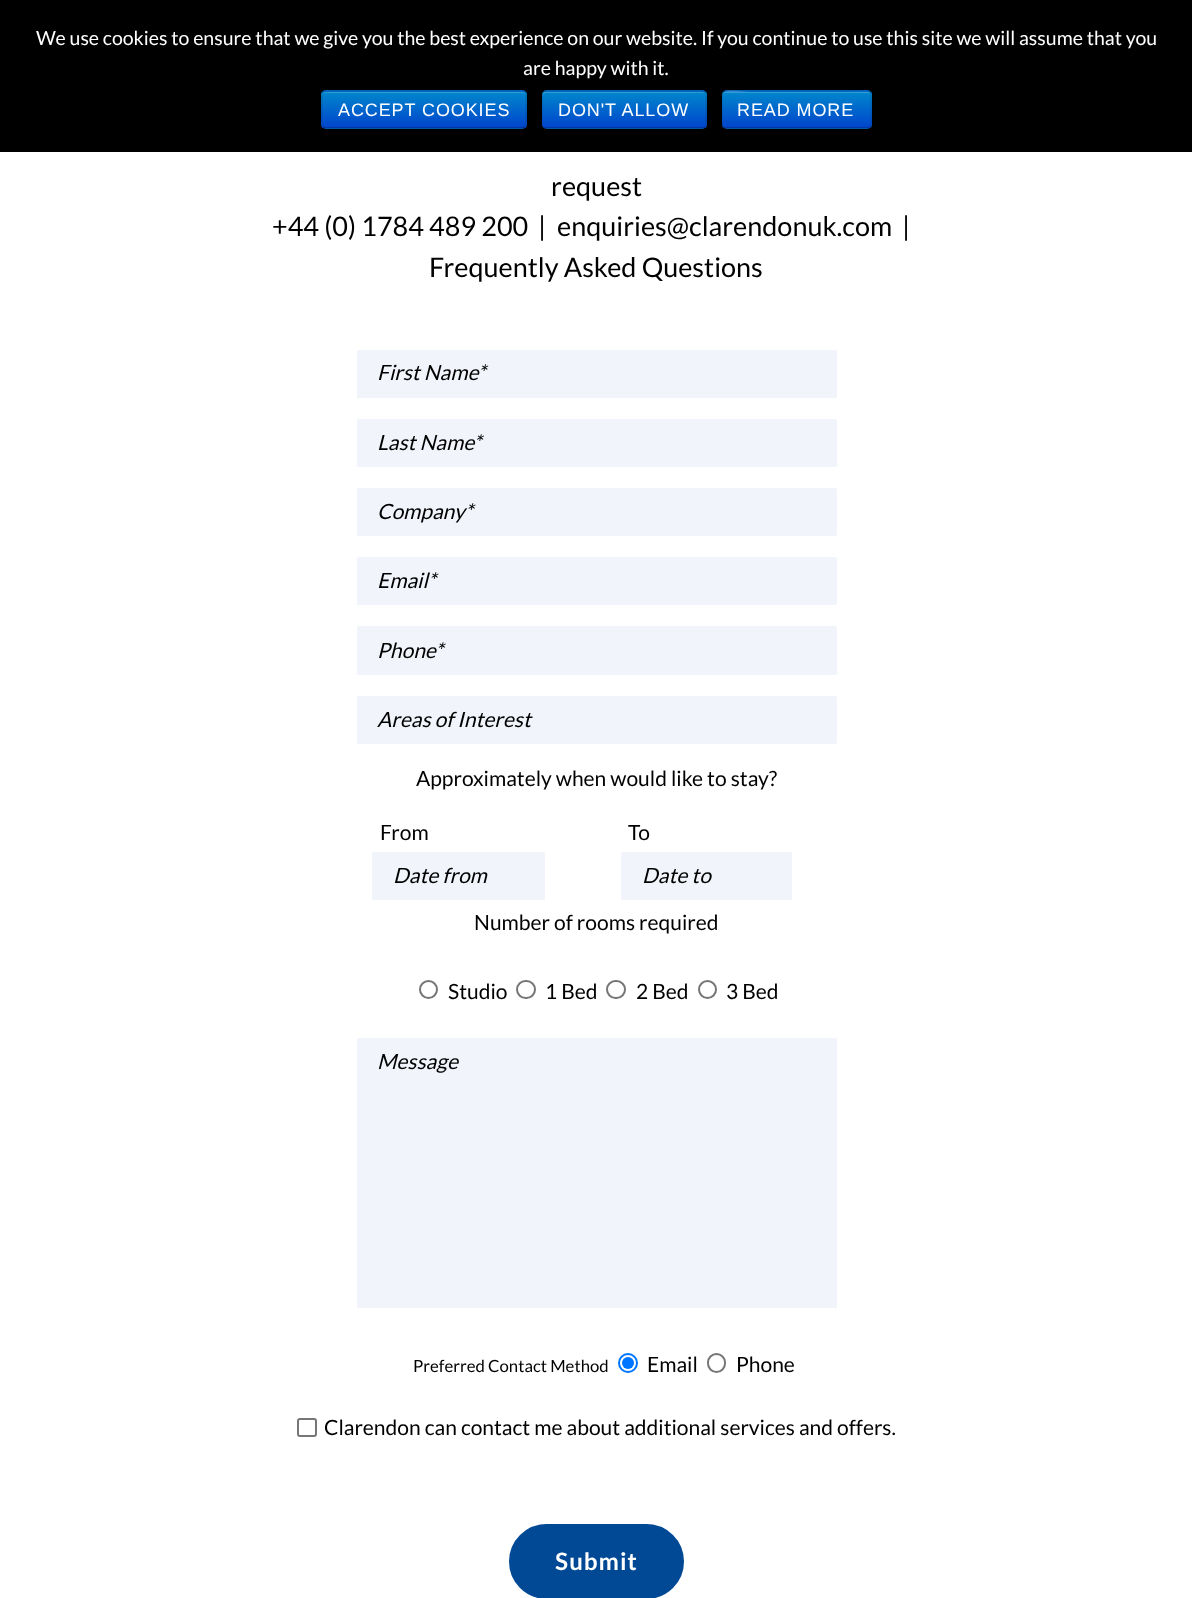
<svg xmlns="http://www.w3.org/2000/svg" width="1192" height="1598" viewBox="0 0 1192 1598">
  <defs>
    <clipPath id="clip1"><rect x="321" y="90" width="206" height="39" rx="5"/></clipPath>
    <linearGradient id="g1" gradientUnits="userSpaceOnUse" x1="424" y1="91" x2="424" y2="128"><stop offset="0" stop-color="#0088cc"/><stop offset="1" stop-color="#0044cc"/></linearGradient>
    <clipPath id="clip2"><rect x="542" y="90" width="165" height="39" rx="5"/></clipPath>
    <linearGradient id="g2" gradientUnits="userSpaceOnUse" x1="624" y1="91" x2="624" y2="128"><stop offset="0" stop-color="#0088cc"/><stop offset="1" stop-color="#0044cc"/></linearGradient>
    <clipPath id="clip3"><rect x="722" y="90" width="150" height="39" rx="5"/></clipPath>
    <linearGradient id="g3" gradientUnits="userSpaceOnUse" x1="797" y1="91" x2="797" y2="128"><stop offset="0" stop-color="#0088cc"/><stop offset="1" stop-color="#0044cc"/></linearGradient>
  </defs>
  <rect width="100%" height="100%" fill="#ffffff"/>
  <rect x="0" y="0" width="1192" height="152" fill="#000000"/>
  <text x="36" y="45" font-family="Lato" font-size="19.5" fill="#ffffff">We use cookies to ensure that we give you the best experience on our website. If you continue to use this site we will assume that you</text>
  <text x="523" y="75" font-family="Lato" font-size="19.5" fill="#ffffff">are happy with it.</text>
  <rect x="321" y="90" width="206" height="39" rx="5" fill="#006dcc"/>
  <g clip-path="url(#clip1)">
    <rect x="321" y="92" width="206" height="36" fill="url(#g1)"/>
  </g>
  <path d="M326 93H522C524 93 525 94 525 96V95C525 93 524 92 522 92H326C325 92 324 93 323 94Z" fill="#339dd6"/>
  <path d="M524.5 127L522 128H325L323 127" fill="none" stroke="#000000" stroke-opacity="0.25" stroke-width="1.5"/>
  <path d="M323 127C322 126.5 322 125.5 322 124.5V94.5C322 93.5 322 92.5 323 92C323.5 91 324.5 91 325.5 91H522C523 91 524 91 524.5 92C525.5 92.5 526 93.5 526 94.5V124.5C526 125.5 525.5 126.5 524.5 127" fill="none" stroke="#000000" stroke-opacity="0.1" stroke-width="1.5"/>
  <text x="338" y="116" font-family="Liberation Sans" font-size="18" letter-spacing="0.9" fill="#ffffff">ACCEPT COOKIES</text>
  <rect x="542" y="90" width="165" height="39" rx="5" fill="#006dcc"/>
  <g clip-path="url(#clip2)">
    <rect x="542" y="92" width="165" height="36" fill="url(#g2)"/>
  </g>
  <path d="M546 93H702C704 93 705 94 705 96C705 94 704 92 702 92H545C543 92 543 94 543 96C543 94 544 93 546 93Z" fill="#339dd6"/>
  <path d="M704.5 127C704 128 703 128 702 128H546C545 128 544 128 543.5 127" fill="none" stroke="#000000" stroke-opacity="0.25" stroke-width="1.5"/>
  <path d="M543.5 127C542.5 126.5 542 125.5 542 124.5V94.5C542 93.5 542.5 92.5 543.5 92C544 91 545 91 546 91H702C703 91 704 91 704.5 92C705.5 92.5 706 93.5 706 94.5V124.5C706 125.5 705.5 126.5 704.5 127" fill="none" stroke="#000000" stroke-opacity="0.1" stroke-width="1.5"/>
  <text x="558" y="116" font-family="Liberation Sans" font-size="18" letter-spacing="0.9" fill="#ffffff">DON'T ALLOW</text>
  <rect x="722" y="90" width="150" height="39" rx="5" fill="#006dcc"/>
  <g clip-path="url(#clip3)">
    <rect x="722" y="92" width="150" height="36" fill="url(#g3)"/>
  </g>
  <path d="M726 93H867C869 93 870 94 870 96C870 94 870 93 868 92H750C742 92 723 87 723 96C723 94 724 93 726 93Z" fill="#ffffff" fill-opacity="0.2"/>
  <path d="M869.5 127C869 128 868 128 867 128H726C725 128 724 128 723.5 127" fill="none" stroke="#000000" stroke-opacity="0.25" stroke-width="1.5"/>
  <path d="M723.5 127C721 124.5 722 117 722 114.5C722 85 717 91 749.5 91H843.5C876 91 871 85 871 114.5C871 117 872 124.5 869.5 127" fill="none" stroke="#000000" stroke-opacity="0.1" stroke-width="1.5"/>
  <text x="737" y="116" font-family="Liberation Sans" font-size="18" letter-spacing="0.9" fill="#ffffff">READ MORE</text>
  <text x="551" y="196" font-family="Lato" font-size="27" fill="#000000">request</text>
  <text x="272" y="236" font-family="Lato" font-size="27" fill="#000000">+44 (0) 1784 489 200</text>
  <text x="538" y="236" font-family="Lato" font-size="27" fill="#000000">|</text>
  <text x="557" y="236" font-family="Lato" font-size="27" fill="#000000">enquiries@clarendonuk.com</text>
  <text x="902" y="236" font-family="Lato" font-size="27" fill="#000000">|</text>
  <text x="429" y="277" font-family="Lato" font-size="27" fill="#000000">Frequently Asked Questions</text>
  <rect x="357" y="350" width="480" height="48" rx="1.5" fill="#f1f4fb"/>
  <text x="377" y="380" font-family="Lato" font-size="21" font-style="italic" fill="#000000">First Name*</text>
  <rect x="357" y="419" width="480" height="48" rx="1.5" fill="#f1f4fb"/>
  <text x="377" y="450" font-family="Lato" font-size="21" font-style="italic" fill="#000000">Last Name*</text>
  <rect x="357" y="488" width="480" height="48" rx="1.5" fill="#f1f4fb"/>
  <text x="377" y="519" font-family="Lato" font-size="21" font-style="italic" fill="#000000">Company*</text>
  <rect x="357" y="557" width="480" height="48" rx="1.5" fill="#f1f4fb"/>
  <text x="377" y="588" font-family="Lato" font-size="21" font-style="italic" fill="#000000">Email*</text>
  <rect x="357" y="626" width="480" height="49" rx="1.5" fill="#f1f4fb"/>
  <text x="377" y="658" font-family="Lato" font-size="21" font-style="italic" fill="#000000">Phone*</text>
  <rect x="357" y="696" width="480" height="48" rx="1.5" fill="#f1f4fb"/>
  <text x="377" y="727" font-family="Lato" font-size="21" font-style="italic" fill="#000000">Areas of Interest</text>
  <text x="416" y="786" font-family="Lato" font-size="21" fill="#000000">Approximately when would like to stay?</text>
  <text x="380" y="840" font-family="Lato" font-size="21" fill="#000000">From</text>
  <rect x="372" y="852" width="173" height="48" rx="1.5" fill="#f1f4fb"/>
  <text x="393" y="883" font-family="Lato" font-size="21" font-style="italic" fill="#000000">Date from</text>
  <text x="628" y="840" font-family="Lato" font-size="21" fill="#000000">To</text>
  <rect x="621" y="852" width="171" height="48" rx="1.5" fill="#f1f4fb"/>
  <text x="642" y="883" font-family="Lato" font-size="21" font-style="italic" fill="#000000">Date to</text>
  <text x="474" y="930" font-family="Lato" font-size="21" fill="#000000">Number of rooms required</text>
  <circle cx="428.5" cy="989.5" r="8.5" fill="none" stroke="#767676" stroke-width="2"/>
  <text x="448" y="999" font-family="Lato" font-size="21" fill="#000000">Studio</text>
  <rect x="517" y="981" width="18" height="17" rx="8.5" fill="none" stroke="#767676" stroke-width="2"/>
  <text x="545" y="999" font-family="Lato" font-size="21" fill="#000000">1 Bed</text>
  <rect x="607" y="981" width="18" height="17" rx="8.5" fill="none" stroke="#767676" stroke-width="2"/>
  <text x="636" y="999" font-family="Lato" font-size="21" fill="#000000">2 Bed</text>
  <circle cx="707.5" cy="989.5" r="8.5" fill="none" stroke="#767676" stroke-width="2"/>
  <text x="726" y="999" font-family="Lato" font-size="21" fill="#000000">3 Bed</text>
  <rect x="357" y="1038" width="480" height="270" rx="1.5" fill="#f1f4fb"/>
  <text x="377" y="1069" font-family="Lato" font-size="21" font-style="italic" fill="#000000">Message</text>
  <text x="413" y="1372" font-family="Lato" font-size="16.75" fill="#000000">Preferred Contact Method</text>
  <circle cx="628" cy="1363" r="9" fill="none" stroke="#0075ff" stroke-width="2"/>
  <circle cx="628" cy="1363" r="6" fill="#0075ff"/>
  <text x="647" y="1372" font-family="Lato" font-size="21" fill="#000000">Email</text>
  <rect x="708" y="1354" width="17" height="18" rx="8.5" fill="none" stroke="#767676" stroke-width="2"/>
  <text x="736" y="1372" font-family="Lato" font-size="21" fill="#000000">Phone</text>
  <rect x="298" y="1419" width="18" height="17" rx="2" fill="none" stroke="#767676" stroke-width="2"/>
  <text x="324" y="1435" font-family="Lato" font-size="21" fill="#000000">Clarendon can contact me about additional services and offers.</text>
  <rect x="510" y="1525" width="173" height="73" rx="36.5" fill="#014994" stroke="#014994" stroke-width="2"/>
  <text x="555" y="1570" font-family="Lato" font-size="24" font-weight="bold" letter-spacing="1.25" fill="#ffffff">Submit</text>
</svg>
